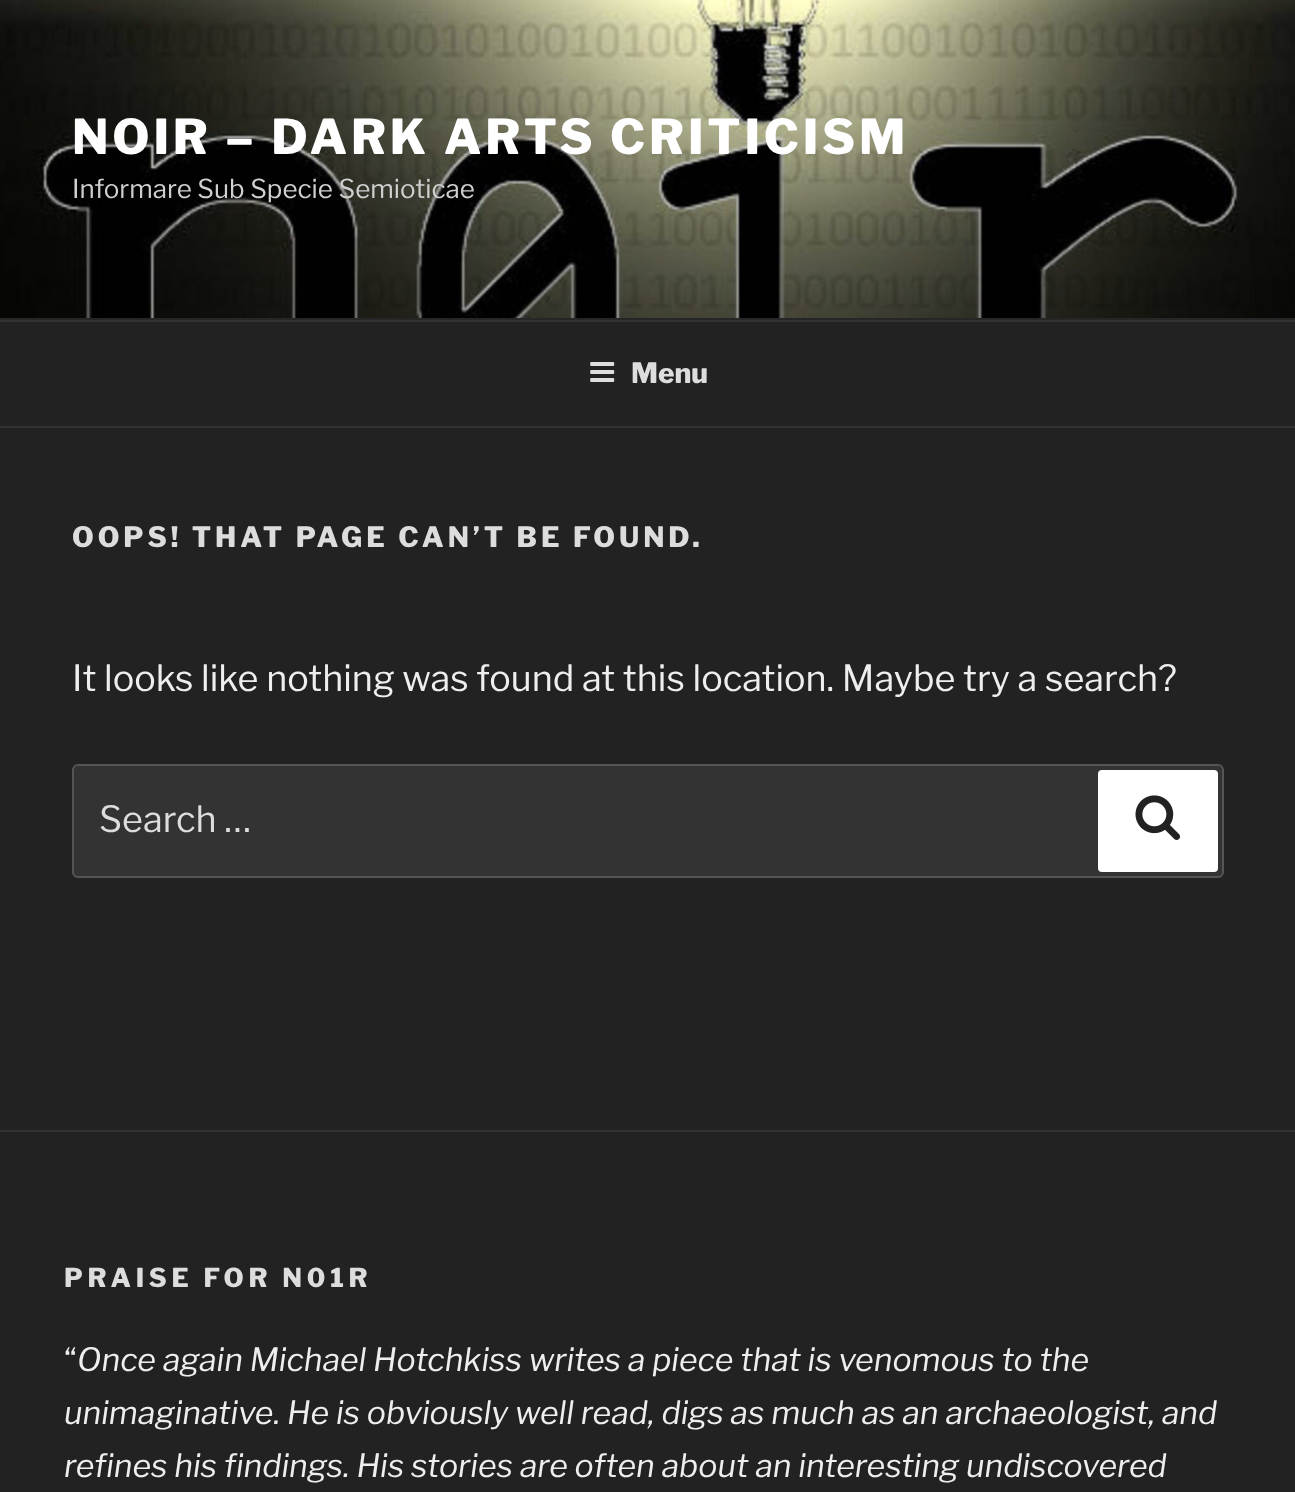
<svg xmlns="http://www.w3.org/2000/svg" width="1295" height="1492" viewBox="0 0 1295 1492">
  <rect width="100%" height="100%" fill="#222222"/>
  <rect x="0" y="318" width="1295" height="2" fill="#262626"/>
  <image x="0" y="0" width="1295" height="318" href="img1.png"/>
  <text x="72" y="154" font-family="Libre Franklin" font-size="48" font-weight="100" letter-spacing="3.85" fill="#ffffff">NOIR – DARK ARTS CRITICISM</text>
  <text x="72" y="198" font-family="'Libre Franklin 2'" font-size="26" font-weight="100" fill="#cfcfcf">Informare Sub Specie Semioticae</text>
  <rect x="0" y="320" width="1295" height="2" fill="#333333"/>
  <rect x="0" y="426" width="1295" height="2" fill="#333333"/>
  <image x="590" y="362" width="25" height="20" href="img2.png"/>
  <text x="631" y="383" font-family="Libre Franklin" font-size="28" font-weight="100" fill="#dddddd">Menu</text>
  <text x="72" y="547" font-family="Libre Franklin" font-size="28" font-weight="100" letter-spacing="3.9" fill="#dddddd">OOPS! THAT PAGE CAN’T BE FOUND.</text>
  <text x="72" y="691" font-family="'Libre Franklin 2'" font-size="36" font-weight="100" fill="#eeeeee">It looks like nothing was found at this location. Maybe try a search?</text>
  <rect x="73" y="765" width="1150" height="112" rx="5" fill="#333333" stroke="#555555" stroke-width="2"/>
  <text x="99" y="832" font-family="'Libre Franklin 2'" font-size="36" font-weight="100" fill="#dddddd">Search …</text>
  <rect x="1098" y="770" width="120" height="102" rx="4" fill="#ffffff"/>
  <image x="1135" y="795" width="46" height="45" href="img3.png"/>
  <rect x="0" y="1130" width="1295" height="2" fill="#333333"/>
  <text x="64" y="1287" font-family="Libre Franklin" font-size="26" font-weight="100" letter-spacing="4.75" fill="#dddddd">PRAISE FOR N01R</text>
  <text x="64" y="1371" font-family="'Libre Franklin 2'" font-size="32" font-weight="100" fill="#eeeeee">“</text>
  <text x="77" y="1371" font-family="Libre Franklin" font-size="32" font-weight="100" font-style="italic" fill="#eeeeee">Once again Michael Hotchkiss writes a piece that is venomous to the</text>
  <text x="64" y="1424" font-family="Libre Franklin" font-size="32" font-weight="100" font-style="italic" fill="#eeeeee">unimaginative. He is obviously well read, digs as much as an archaeologist, and</text>
  <text x="64" y="1477" font-family="Libre Franklin" font-size="32" font-weight="100" font-style="italic" fill="#eeeeee">refines his findings. His stories are often about an interesting undiscovered</text>
</svg>
